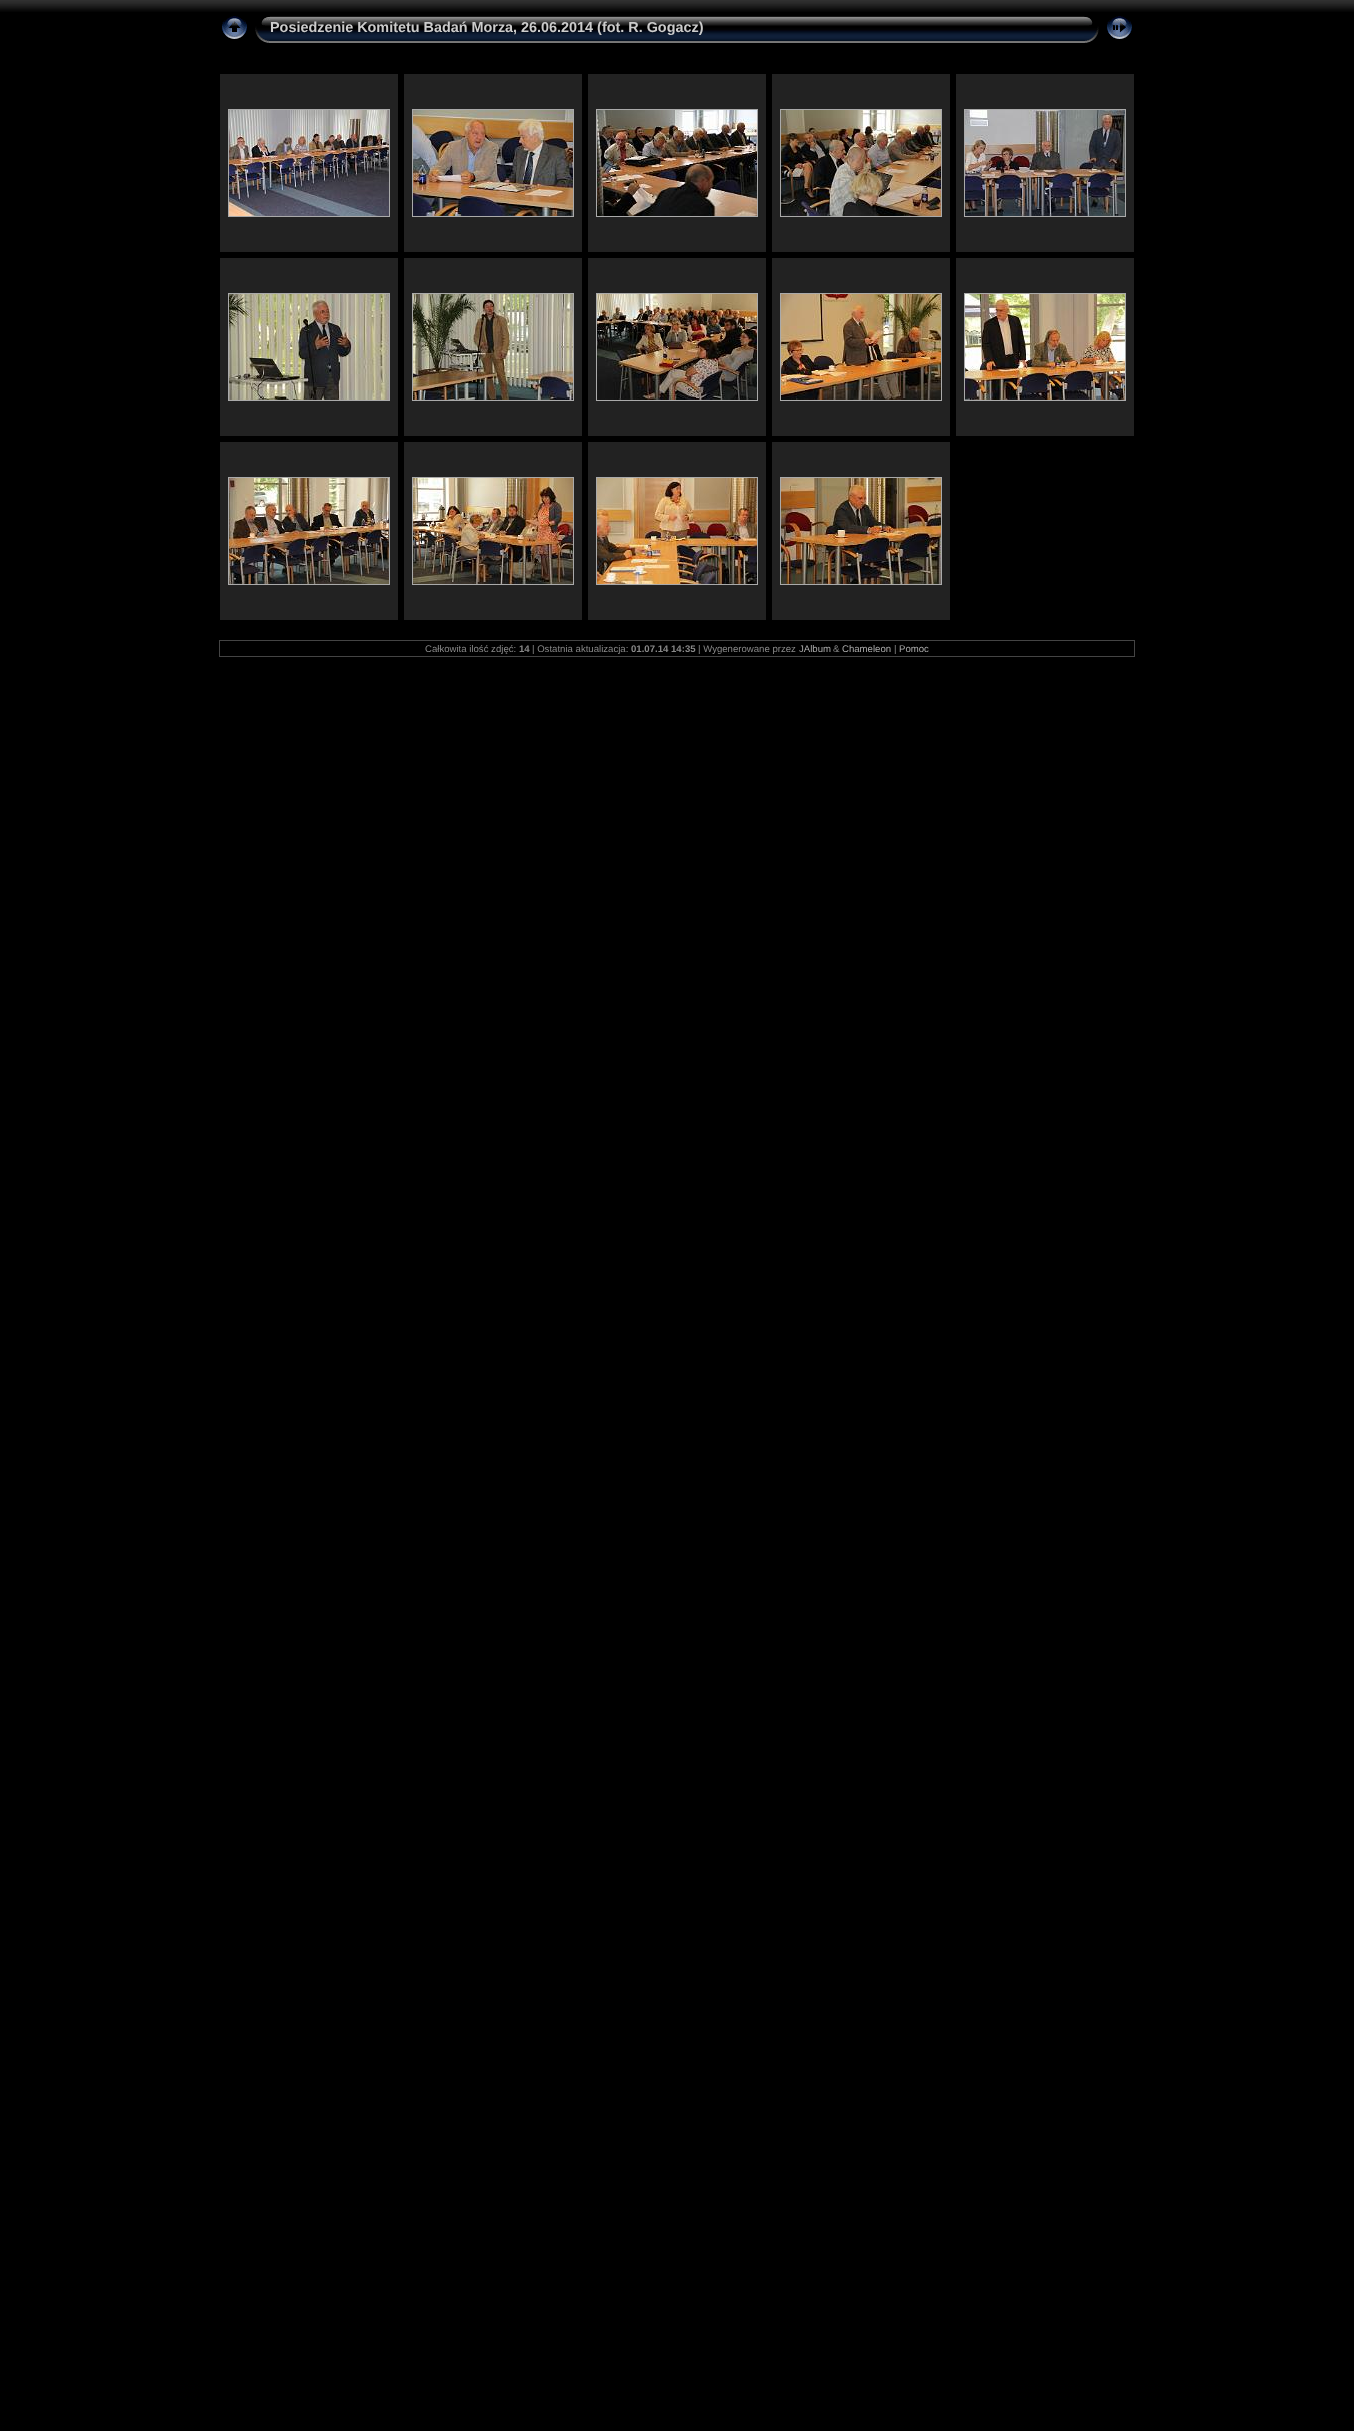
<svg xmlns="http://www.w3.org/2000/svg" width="1354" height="2431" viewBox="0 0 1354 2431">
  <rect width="100%" height="100%" fill="#000000"/>
  <image x="0" y="0" width="1354" height="12" href="img1.png"/>
  <image x="222" y="16" width="25" height="23" href="img2.png"/>
  <image x="255" y="16" width="15" height="27" href="img3.png"/>
  <image x="270" y="16" width="814" height="27" href="img4.png"/>
  <text x="270" y="32" font-family="Liberation Sans" font-size="14.4" font-weight="bold" fill="#cccccc">Posiedzenie Komitetu Badań Morza, 26.06.2014 (fot. R. Gogacz)</text>
  <image x="1084" y="16" width="15" height="27" href="img5.png"/>
  <image x="1107" y="16" width="25" height="23" href="img6.png"/>
  <rect x="220" y="74" width="178" height="178" fill="#222222"/>
  <rect x="228.5" y="109.5" width="161" height="107" fill="none" stroke="#aaaaaa"/>
  <image x="229" y="110" width="160" height="106" href="img7.png"/>
  <rect x="404" y="74" width="178" height="178" fill="#222222"/>
  <rect x="412.5" y="109.5" width="161" height="107" fill="none" stroke="#aaaaaa"/>
  <image x="413" y="110" width="160" height="106" href="img8.png"/>
  <rect x="588" y="74" width="178" height="178" fill="#222222"/>
  <rect x="596.5" y="109.5" width="161" height="107" fill="none" stroke="#aaaaaa"/>
  <image x="597" y="110" width="160" height="106" href="img9.png"/>
  <rect x="772" y="74" width="178" height="178" fill="#222222"/>
  <rect x="780.5" y="109.5" width="161" height="107" fill="none" stroke="#aaaaaa"/>
  <image x="781" y="110" width="160" height="106" href="img10.png"/>
  <rect x="956" y="74" width="178" height="178" fill="#222222"/>
  <rect x="964.5" y="109.5" width="161" height="107" fill="none" stroke="#aaaaaa"/>
  <image x="965" y="110" width="160" height="106" href="img11.png"/>
  <rect x="220" y="258" width="178" height="178" fill="#222222"/>
  <rect x="228.5" y="293.5" width="161" height="107" fill="none" stroke="#aaaaaa"/>
  <image x="229" y="294" width="160" height="106" href="img12.png"/>
  <rect x="404" y="258" width="178" height="178" fill="#222222"/>
  <rect x="412.5" y="293.5" width="161" height="107" fill="none" stroke="#aaaaaa"/>
  <image x="413" y="294" width="160" height="106" href="img13.png"/>
  <rect x="588" y="258" width="178" height="178" fill="#222222"/>
  <rect x="596.5" y="293.5" width="161" height="107" fill="none" stroke="#aaaaaa"/>
  <image x="597" y="294" width="160" height="106" href="img14.png"/>
  <rect x="772" y="258" width="178" height="178" fill="#222222"/>
  <rect x="780.5" y="293.5" width="161" height="107" fill="none" stroke="#aaaaaa"/>
  <image x="781" y="294" width="160" height="106" href="img15.png"/>
  <rect x="956" y="258" width="178" height="178" fill="#222222"/>
  <rect x="964.5" y="293.5" width="161" height="107" fill="none" stroke="#aaaaaa"/>
  <image x="965" y="294" width="160" height="106" href="img16.png"/>
  <rect x="220" y="442" width="178" height="178" fill="#222222"/>
  <rect x="228.5" y="477.5" width="161" height="107" fill="none" stroke="#aaaaaa"/>
  <image x="229" y="478" width="160" height="106" href="img17.png"/>
  <rect x="404" y="442" width="178" height="178" fill="#222222"/>
  <rect x="412.5" y="477.5" width="161" height="107" fill="none" stroke="#aaaaaa"/>
  <image x="413" y="478" width="160" height="106" href="img18.png"/>
  <rect x="588" y="442" width="178" height="178" fill="#222222"/>
  <rect x="596.5" y="477.5" width="161" height="107" fill="none" stroke="#aaaaaa"/>
  <image x="597" y="478" width="160" height="106" href="img19.png"/>
  <rect x="772" y="442" width="178" height="178" fill="#222222"/>
  <rect x="780.5" y="477.5" width="161" height="107" fill="none" stroke="#aaaaaa"/>
  <image x="781" y="478" width="160" height="106" href="img20.png"/>
  <rect x="219" y="640" width="916" height="1" fill="#444444"/>
  <rect x="1134" y="640" width="1" height="17" fill="#444444"/>
  <rect x="219" y="656" width="916" height="1" fill="#444444"/>
  <rect x="219" y="640" width="1" height="17" fill="#444444"/>
  <text x="425" y="652" font-family="Liberation Sans" font-size="9.6" fill="#888888">Całkowita ilość zdjęć:</text>
  <text x="519" y="652" font-family="Liberation Sans" font-size="9.6" font-weight="bold" fill="#888888">14</text>
  <text x="532" y="652" font-family="Liberation Sans" font-size="9.6" fill="#888888">| Ostatnia aktualizacja:</text>
  <text x="631" y="652" font-family="Liberation Sans" font-size="9.6" font-weight="bold" fill="#888888">01.07.14 14:35</text>
  <text x="698" y="652" font-family="Liberation Sans" font-size="9.6" fill="#888888">| Wygenerowane przez</text>
  <text x="799" y="652" font-family="Liberation Sans" font-size="9.6" fill="#aaaaaa">JAlbum</text>
  <text x="833" y="652" font-family="Liberation Sans" font-size="9.6" fill="#888888">&amp;</text>
  <text x="842" y="652" font-family="Liberation Sans" font-size="9.6" fill="#aaaaaa">Chameleon</text>
  <text x="894" y="652" font-family="Liberation Sans" font-size="9.6" fill="#888888">|</text>
  <text x="899" y="652" font-family="Liberation Sans" font-size="9.6" fill="#aaaaaa">Pomoc</text>
</svg>
